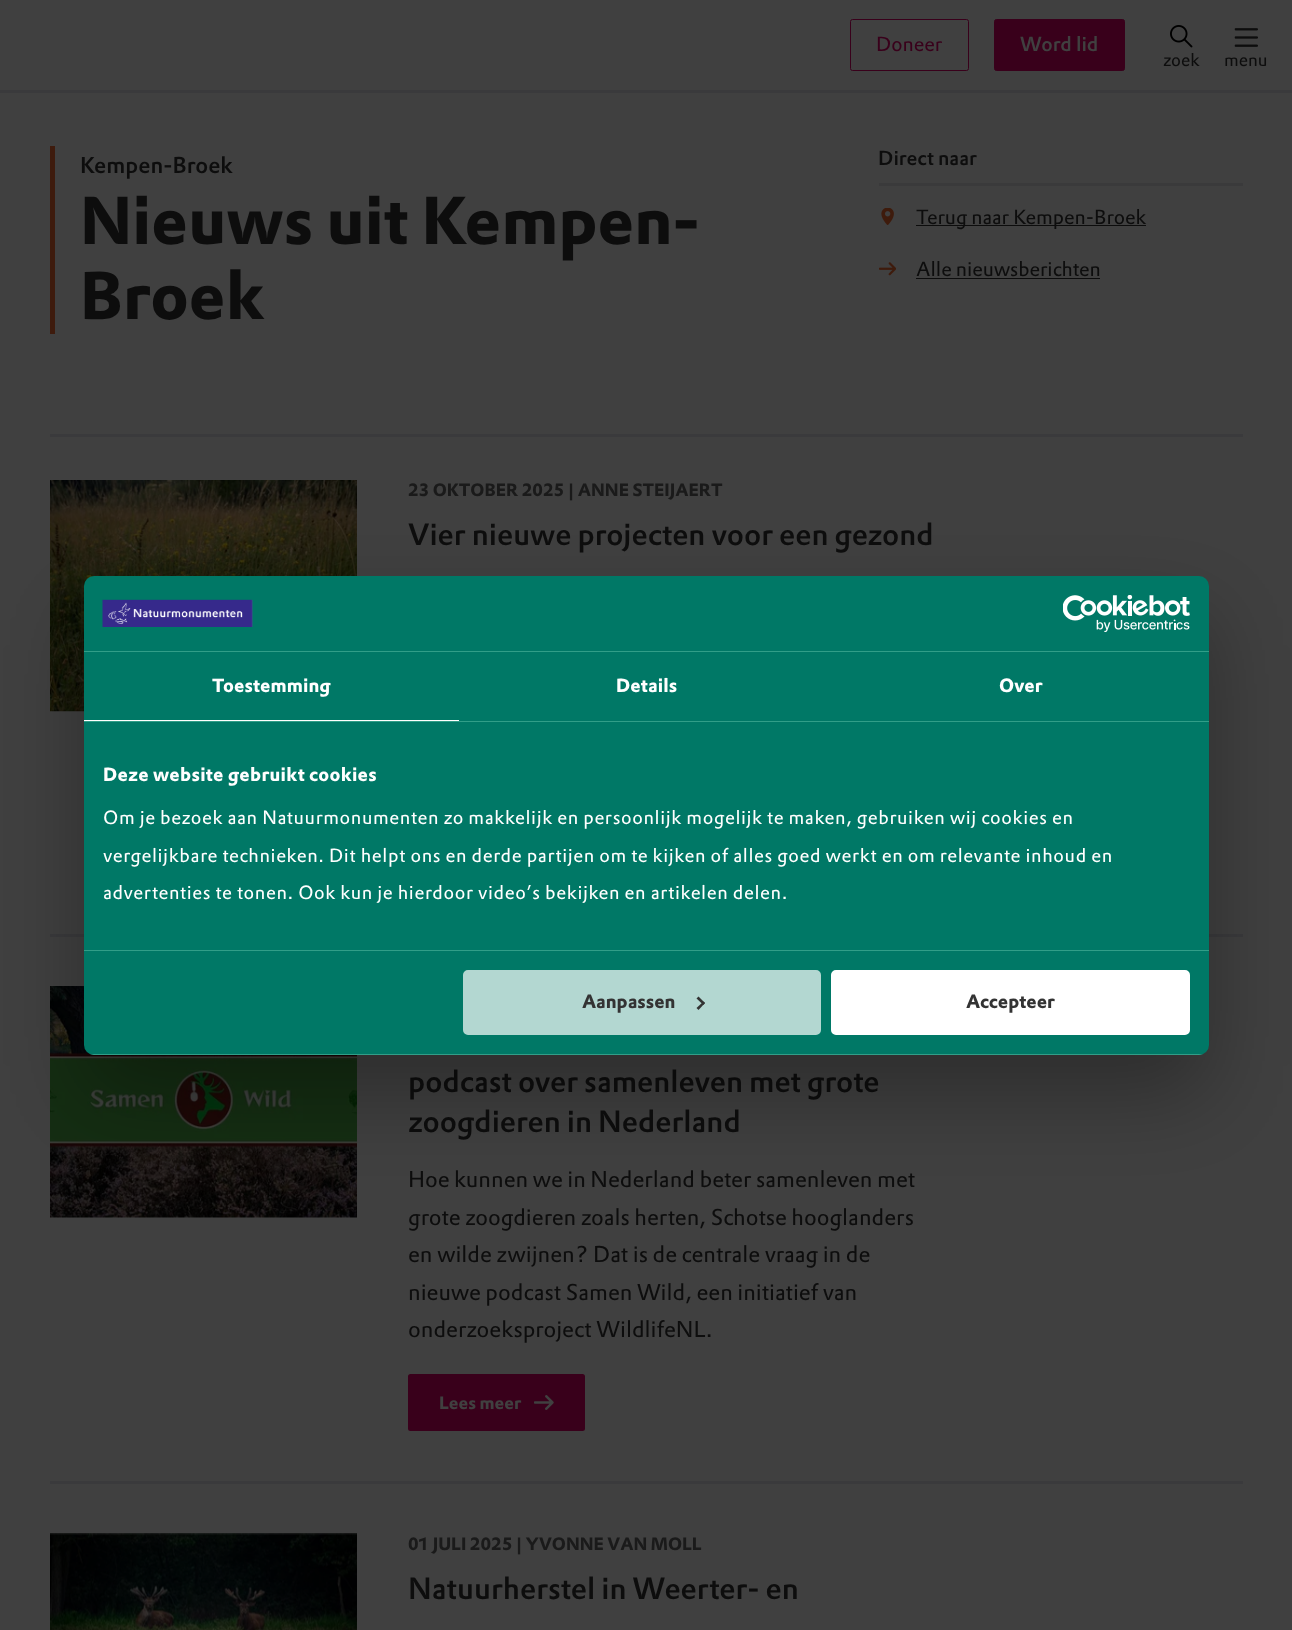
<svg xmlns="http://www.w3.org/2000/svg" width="1292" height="1630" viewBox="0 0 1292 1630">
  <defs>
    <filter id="blur1" x="-50%" y="-200%" width="200%" height="500%"><feGaussianBlur stdDeviation="42.5"/></filter>
    <clipPath id="clip1"><rect x="84" y="576" width="1125" height="479" rx="10"/></clipPath>
  </defs>
  <rect width="100%" height="100%" fill="#404040"/>
  <rect x="0" y="90" width="1292" height="3" fill="#3a3a3c"/>
  <rect x="850.5" y="19.5" width="118" height="51" rx="2" fill="none" stroke="#39001b"/>
  <text x="876" y="51" font-family="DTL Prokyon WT" font-size="20" fill="#39001b">Doneer</text>
  <rect x="994.5" y="19.5" width="130" height="51" rx="2" fill="#39001b" stroke="#39001b"/>
  <text x="1020" y="51" font-family="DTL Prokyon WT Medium" font-size="20" font-weight="500" fill="#404040">Word lid</text>
  <image x="1170" y="25" width="23" height="23" href="img1.png"/>
  <text x="1163" y="66" font-family="DTL Prokyon WT" font-size="17.5" fill="#0d0d0d">zoek</text>
  <image x="1234" y="28" width="24" height="19" href="img2.png"/>
  <text x="1224" y="66" font-family="DTL Prokyon WT" font-size="17.5" fill="#0d0d0d">menu</text>
  <rect x="50" y="146" width="5" height="188" fill="#3e1b0d"/>
  <text x="80" y="173" font-family="DTL Prokyon WT Medium" font-size="22.5" font-weight="500" fill="#0d0d0d">Kempen-Broek</text>
  <text x="80" y="244" font-family="DTL Prokyon WT" font-size="66.25" font-weight="bold" fill="#0d0d0d">Nieuws uit Kempen-</text>
  <text x="80" y="319" font-family="DTL Prokyon WT" font-size="66.25" font-weight="bold" fill="#0d0d0d">Broek</text>
  <rect x="879" y="183" width="364" height="3" fill="#3a3a3b"/>
  <text x="878" y="165" font-family="DTL Prokyon WT Medium" font-size="20" font-weight="500" fill="#0d0d0d">Direct naar</text>
  <image x="881" y="208" width="13" height="17" href="img3.png"/>
  <rect x="916" y="225" width="230" height="1" fill="#0d0d0d"/>
  <text x="916" y="224" font-family="DTL Prokyon WT" font-size="20" fill="#0d0d0d">Terug naar Kempen-Broek</text>
  <image x="879" y="262" width="17" height="14" href="img4.png"/>
  <text x="916" y="276" font-family="DTL Prokyon WT" font-size="20" fill="#0d0d0d">Alle nieuwsberichten</text>
  <rect x="916" y="278" width="184" height="1" fill="#0d0d0d"/>
  <rect x="50" y="434" width="1193" height="3" fill="#3a3a3c"/>
  <rect x="50" y="934" width="1193" height="3" fill="#3a3a3c"/>
  <image x="50" y="480" width="307" height="232" href="img5.png"/>
  <text x="408" y="496" font-family="DTL Prokyon WT" font-size="17.5" font-weight="bold" fill="#1a1a1a">23 OKTOBER 2025 | ANNE STEIJAERT</text>
  <text x="408" y="545" font-family="DTL Prokyon WT Medium" font-size="30" font-weight="500" fill="#0d0d0d">Vier nieuwe projecten voor een gezond</text>
  <rect x="50" y="1481" width="1193" height="3" fill="#3a3a3c"/>
  <image x="50" y="986" width="307" height="232" href="img6.png"/>
  <text x="408" y="1092" font-family="DTL Prokyon WT Medium" font-size="30" font-weight="500" fill="#0d0d0d">podcast over samenleven met grote</text>
  <text x="408" y="1132" font-family="DTL Prokyon WT Medium" font-size="30" font-weight="500" fill="#0d0d0d">zoogdieren in Nederland</text>
  <text x="408" y="1187" font-family="DTL Prokyon WT" font-size="22.5" fill="#0d0d0d">Hoe kunnen we in Nederland beter samenleven met</text>
  <text x="408" y="1225" font-family="DTL Prokyon WT" font-size="22.5" fill="#0d0d0d">grote zoogdieren zoals herten, Schotse hooglanders</text>
  <text x="408" y="1262" font-family="DTL Prokyon WT" font-size="22.5" fill="#0d0d0d">en wilde zwijnen? Dat is de centrale vraag in de</text>
  <text x="408" y="1300" font-family="DTL Prokyon WT" font-size="22.5" fill="#0d0d0d">nieuwe podcast Samen Wild, een initiatief van</text>
  <text x="408" y="1337" font-family="DTL Prokyon WT" font-size="22.5" fill="#0d0d0d">onderzoeksproject WildlifeNL.</text>
  <rect x="409.5" y="1375.5" width="174" height="54" rx="1" fill="#39001b" stroke="#39001b" stroke-width="3"/>
  <text x="439" y="1409" font-family="DTL Prokyon WT" font-size="17.5" font-weight="bold" fill="#404040">Lees meer</text>
  <image x="534" y="1395" width="20" height="15" href="img7.png"/>
  <image x="50" y="1533" width="307" height="97" href="img8.png"/>
  <text x="408" y="1550" font-family="DTL Prokyon WT" font-size="17.5" font-weight="bold" fill="#1a1a1a">01 JULI 2025 | YVONNE VAN MOLL</text>
  <text x="408" y="1599" font-family="DTL Prokyon WT Medium" font-size="30" font-weight="500" fill="#0d0d0d">Natuurherstel in Weerter- en</text>
  <rect x="84" y="616" width="1125" height="479" rx="10" fill="#000000" fill-opacity="0.3" filter="url(#blur1)"/>
  <rect x="84" y="576" width="1125" height="479" rx="10" fill="#007866"/>
  <rect x="84" y="651" width="1125" height="1" fill="#319e88"/>
  <image x="102" y="599" width="151" height="28" href="img9.png"/>
  <image x="1063" y="595" width="127" height="38" href="img10.png"/>
  <rect x="84" y="721" width="1125" height="1" fill="#319e88"/>
  <rect x="84" y="720" width="375" height="1" fill="#ffffff"/>
  <text x="212" y="692" font-family="DTL Prokyon WT" font-size="18.75" font-weight="bold" letter-spacing="0.1" fill="#ffffff">Toestemming</text>
  <text x="616" y="692" font-family="DTL Prokyon WT" font-size="18.75" font-weight="bold" letter-spacing="0.1" fill="#ffffff">Details</text>
  <text x="999" y="692" font-family="DTL Prokyon WT" font-size="18.75" font-weight="bold" letter-spacing="0.1" fill="#ffffff">Over</text>
  <rect x="84" y="950" width="1125" height="1" fill="#319e88"/>
  <text x="103" y="781" font-family="DTL Prokyon WT" font-size="18.75" font-weight="bold" letter-spacing="0.3" fill="#ffffff">Deze website gebruikt cookies</text>
  <text x="103" y="824" font-family="DTL Prokyon WT" font-size="18.75" letter-spacing="0.62" fill="#ffffff">Om je bezoek aan Natuurmonumenten zo makkelijk en persoonlijk mogelijk te maken, gebruiken wij cookies en</text>
  <text x="103" y="862" font-family="DTL Prokyon WT" font-size="18.75" letter-spacing="0.62" fill="#ffffff">vergelijkbare technieken. Dit helpt ons en derde partijen om te kijken of alles goed werkt en om relevante inhoud en</text>
  <text x="103" y="899" font-family="DTL Prokyon WT" font-size="18.75" letter-spacing="0.62" fill="#ffffff">advertenties te tonen. Ook kun je hierdoor video’s bekijken en artikelen delen.</text>
  <g clip-path="url(#clip1)">
    <rect x="84" y="1054" width="1125" height="1" fill="#319e88"/>
  </g>
  <rect x="464.5" y="971.5" width="355" height="62" rx="3.5" fill="#b3d7d1" stroke="#b3d7d1" stroke-width="3"/>
  <text x="582" y="1008" font-family="DTL Prokyon WT" font-size="18.75" font-weight="bold" fill="#333333">Aanpassen</text>
  <path d="M698.5 996.5L705 1003L703.5 1005L696.5 998.5Z" fill="#333333"/>
  <path d="M703.5 1001.5L705 1003L698.5 1010L696.5 1008Z" fill="#333333"/>
  <rect x="832.5" y="971.5" width="356" height="62" rx="3.5" fill="#ffffff" stroke="#ffffff" stroke-width="3"/>
  <text x="966" y="1008" font-family="DTL Prokyon WT" font-size="18.75" font-weight="bold" fill="#333333">Accepteer</text>
</svg>
